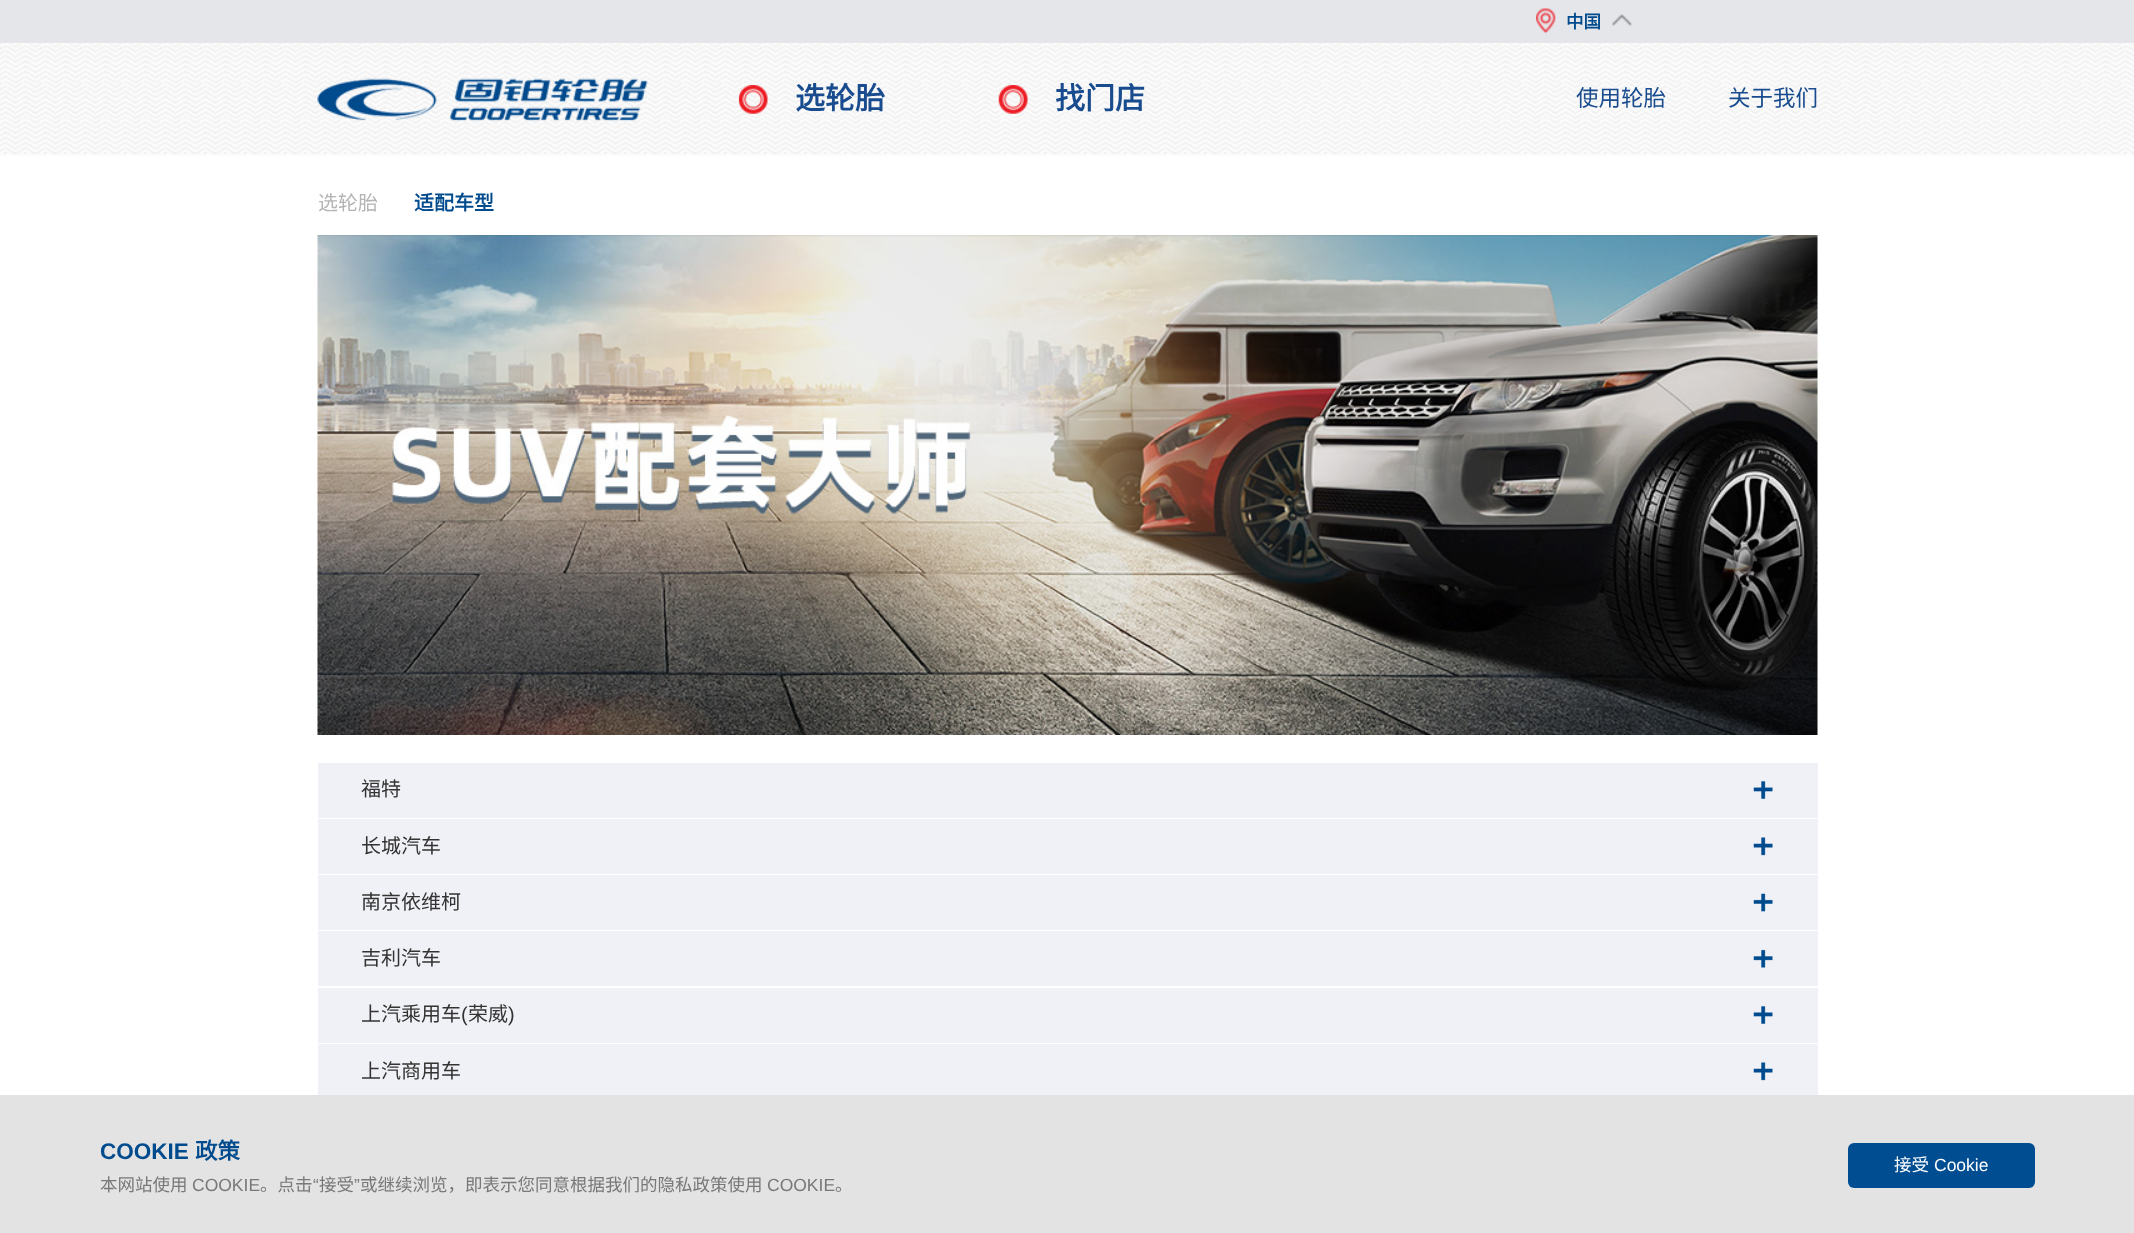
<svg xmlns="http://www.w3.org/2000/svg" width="2134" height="1233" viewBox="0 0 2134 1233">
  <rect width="100%" height="100%" fill="#ffffff"/>
  <rect x="0" y="0" width="2134" height="43" fill="#e4e6ea"/>
  <image x="1536" y="8" width="20" height="25" href="img1.png"/>
  <text x="1566" y="28" font-family="Noto Sans CJK SC" font-size="17.5" font-weight="bold" fill="#004b8d">中国</text>
  <image x="1612" y="14" width="20" height="12" href="img2.png"/>
  <image x="0" y="43" width="2134" height="113" href="img3.png"/>
  <image x="317" y="78" width="331" height="43" href="img4.png"/>
  <image x="738" y="85" width="30" height="29" href="img5.png"/>
  <text x="795" y="109" font-family="Noto Sans CJK SC" font-size="30" font-weight="bold" fill="#194c8e">选轮胎</text>
  <image x="998" y="85" width="30" height="29" href="img6.png"/>
  <text x="1055" y="109" font-family="Noto Sans CJK SC" font-size="30" font-weight="bold" fill="#194c8e">找门店</text>
  <text x="1576" y="106" font-family="Noto Sans CJK SC" font-size="22.5" fill="#194c8e">使用轮胎</text>
  <text x="1728" y="106" font-family="Noto Sans CJK SC" font-size="22.5" fill="#194c8e">关于我们</text>
  <text x="318" y="210" font-family="Noto Sans CJK SC" font-size="20" fill="#b4b4b4">选轮胎</text>
  <text x="414" y="210" font-family="Noto Sans CJK SC" font-size="20" font-weight="bold" fill="#004b8d">适配车型</text>
  <image x="317" y="235" width="1501" height="500" href="img7.png"/>
  <rect x="318" y="763" width="1500" height="55" fill="#f0f1f6"/>
  <image x="1753" y="781" width="20" height="18" href="img8.png"/>
  <text x="361" y="796" font-family="Noto Sans CJK SC" font-size="20" fill="#333333">福特</text>
  <rect x="318" y="819" width="1500" height="55" fill="#f0f1f6"/>
  <image x="1753" y="837" width="20" height="19" href="img9.png"/>
  <text x="361" y="853" font-family="Noto Sans CJK SC" font-size="20" fill="#333333">长城汽车</text>
  <rect x="318" y="875" width="1500" height="55" fill="#f0f1f6"/>
  <image x="1753" y="893" width="20" height="19" href="img10.png"/>
  <text x="361" y="909" font-family="Noto Sans CJK SC" font-size="20" fill="#333333">南京依维柯</text>
  <rect x="318" y="931" width="1500" height="55" fill="#f0f1f6"/>
  <image x="1753" y="949" width="20" height="19" href="img11.png"/>
  <text x="361" y="965" font-family="Noto Sans CJK SC" font-size="20" fill="#333333">吉利汽车</text>
  <rect x="318" y="988" width="1500" height="55" fill="#f0f1f6"/>
  <image x="1753" y="1006" width="20" height="18" href="img12.png"/>
  <text x="361" y="1021" font-family="Noto Sans CJK SC" font-size="20" fill="#333333">上汽乘用车</text>
  <text x="461" y="1021" font-family="Liberation Sans" font-size="20" fill="#333333">(</text>
  <text x="468" y="1021" font-family="Noto Sans CJK SC" font-size="20" fill="#333333">荣威</text>
  <text x="508" y="1021" font-family="Liberation Sans" font-size="20" fill="#333333">)</text>
  <rect x="318" y="1044" width="1500" height="51" fill="#f0f1f6"/>
  <image x="1753" y="1062" width="20" height="19" href="img9.png"/>
  <text x="361" y="1078" font-family="Noto Sans CJK SC" font-size="20" fill="#333333">上汽商用车</text>
  <rect x="0" y="1095" width="2134" height="138" fill="#e3e3e3"/>
  <text x="100" y="1159" font-family="Liberation Sans" font-size="22.5" font-weight="bold" fill="#004b8d">COOKIE</text>
  <text x="195" y="1159" font-family="Noto Sans CJK SC" font-size="22.5" font-weight="bold" fill="#004b8d">政策</text>
  <text x="100" y="1191" font-family="Noto Sans CJK SC" font-size="17.5" fill="#787878">本网站使用</text>
  <text x="192" y="1191" font-family="Liberation Sans" font-size="17.5" fill="#787878">COOKIE</text>
  <text x="260" y="1191" font-family="Noto Sans CJK SC" font-size="17.5" fill="#787878">。点击</text>
  <text x="313" y="1191" font-family="Liberation Sans" font-size="17.5" fill="#787878">“</text>
  <text x="319" y="1191" font-family="Noto Sans CJK SC" font-size="17.5" fill="#787878">接受</text>
  <text x="354" y="1191" font-family="Liberation Sans" font-size="17.5" fill="#787878">”</text>
  <text x="360" y="1191" font-family="Noto Sans CJK SC" font-size="17.5" fill="#787878">或继续浏览，即表示您同意根据我们的隐私政策使用</text>
  <text x="767" y="1191" font-family="Liberation Sans" font-size="17.5" fill="#787878">COOKIE</text>
  <text x="835" y="1191" font-family="Noto Sans CJK SC" font-size="17.5" fill="#787878">。</text>
  <rect x="1848" y="1143" width="187" height="45" rx="6" fill="#004d92"/>
  <text x="1894" y="1171" font-family="Noto Sans CJK SC" font-size="17.5" fill="#ffffff">接受</text>
  <text x="1934" y="1171" font-family="Liberation Sans" font-size="17.5" fill="#ffffff">Cookie</text>
</svg>
